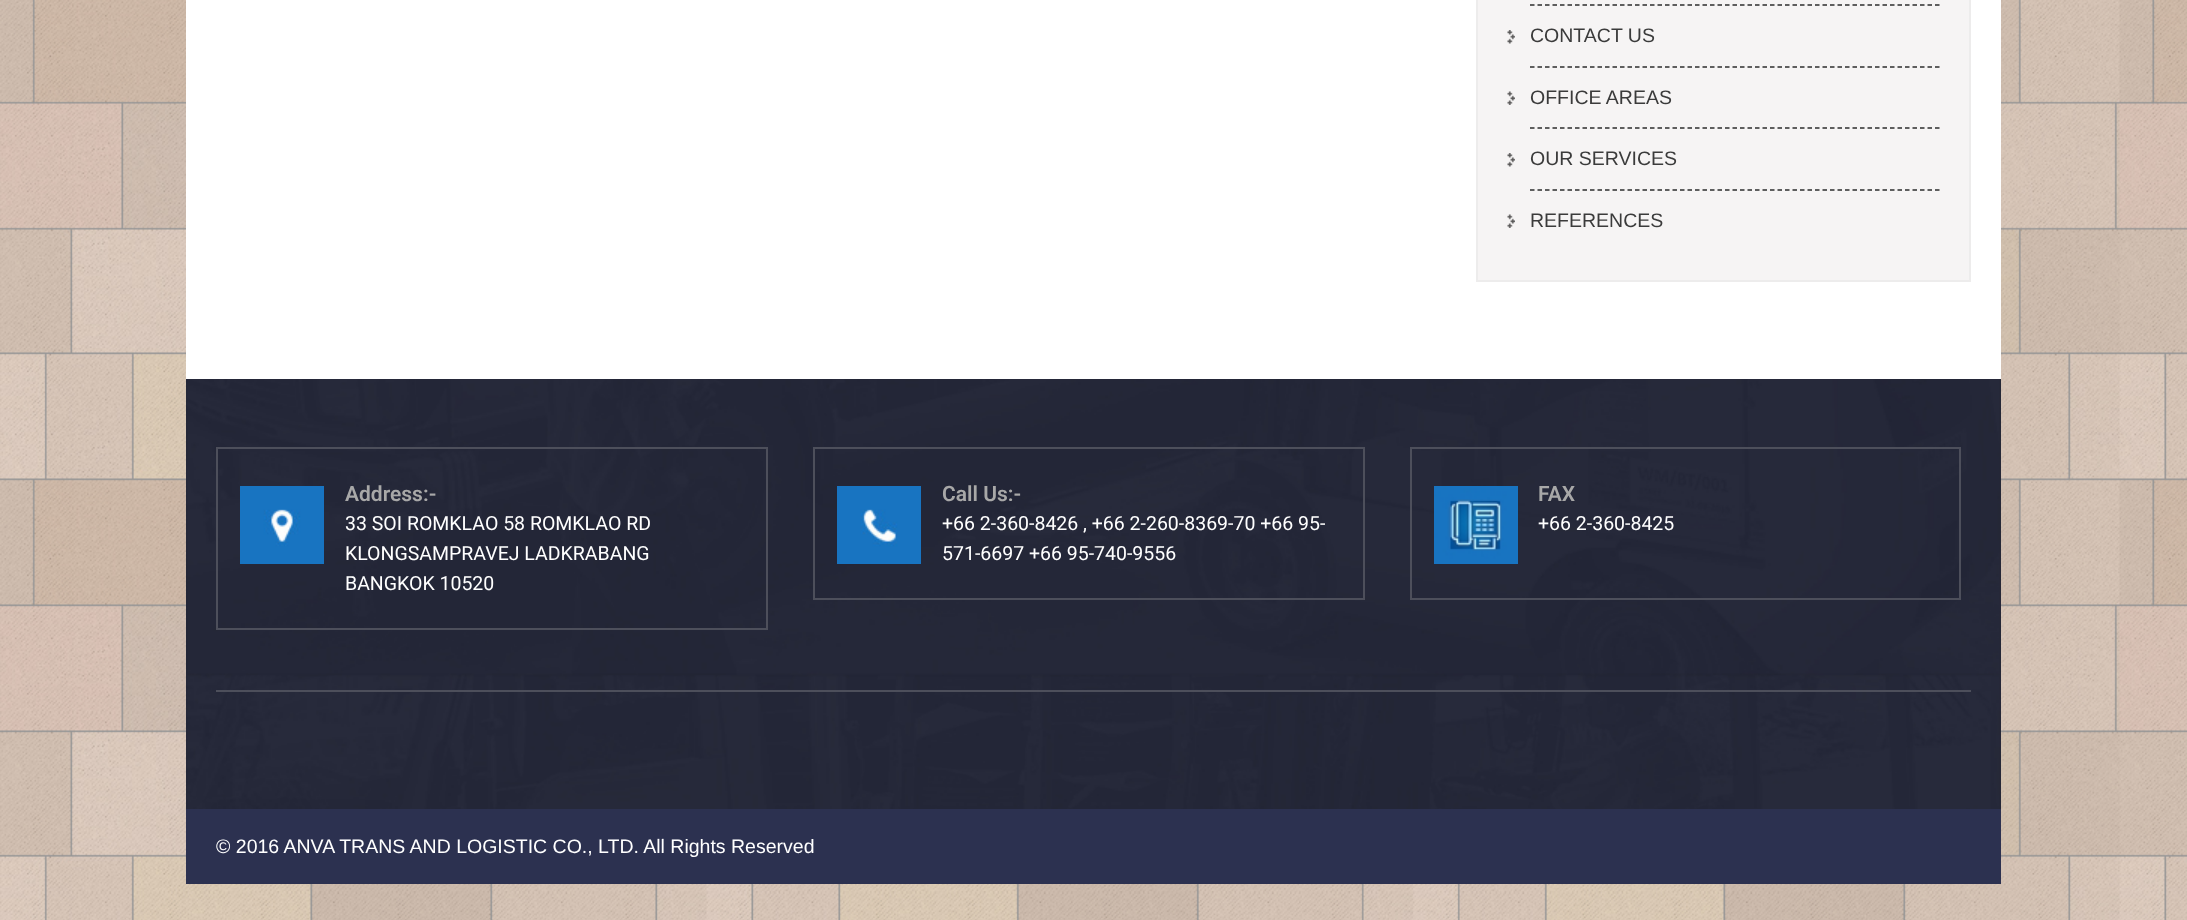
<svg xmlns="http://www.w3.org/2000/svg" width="2187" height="920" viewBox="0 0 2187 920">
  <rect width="100%" height="100%" fill="#ffffff"/>
  <image x="0" y="0" width="2187" height="920" href="img1.png"/>
  <rect x="186" y="0" width="1815" height="379" fill="#ffffff"/>
  <rect x="1477" y="-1" width="493" height="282" fill="#f6f4f4" stroke="#edecec" stroke-width="2"/>
  <path d="M1530 5H1939.5" fill="none" stroke="#2c2c2c" stroke-width="1.5" stroke-dasharray="4.5 3"/>
  <image x="1507" y="30" width="8" height="14" href="img2.png"/>
  <path d="M1530 67H1939.5" fill="none" stroke="#2c2c2c" stroke-width="1.5" stroke-dasharray="4.5 3"/>
  <text x="1530" y="42" font-family="Liberation Sans" font-size="19.5" fill="#3b3b3b">CONTACT US</text>
  <image x="1507" y="91" width="8" height="14" href="img3.png"/>
  <path d="M1530 128H1939.5" fill="none" stroke="#2c2c2c" stroke-width="1.5" stroke-dasharray="4.5 3"/>
  <text x="1530" y="104" font-family="Liberation Sans" font-size="19.5" fill="#3b3b3b">OFFICE AREAS</text>
  <image x="1507" y="153" width="8" height="14" href="img2.png"/>
  <path d="M1530 190H1939.5" fill="none" stroke="#2c2c2c" stroke-width="1.5" stroke-dasharray="4.5 3"/>
  <text x="1530" y="165" font-family="Liberation Sans" font-size="19.5" fill="#3b3b3b">OUR SERVICES</text>
  <image x="1507" y="214" width="8" height="14" href="img3.png"/>
  <text x="1530" y="227" font-family="Liberation Sans" font-size="19.5" fill="#3b3b3b">REFERENCES</text>
  <image x="186" y="379" width="1815" height="430" href="img4.png"/>
  <rect x="216" y="690" width="1755" height="2" fill="#4d4f5b"/>
  <rect x="217" y="448" width="550" height="181" fill="none" stroke="#4d4f5b" stroke-width="2"/>
  <image x="240" y="486" width="84" height="78" href="img5.png"/>
  <text x="345" y="501" font-family="Roboto" font-size="21" font-weight="600" fill="#a8a8a8">Address:-</text>
  <text x="345" y="530" font-family="Roboto" font-size="19.5" fill="#ffffff">33 SOI ROMKLAO 58 ROMKLAO RD</text>
  <text x="345" y="560" font-family="Roboto" font-size="19.5" fill="#ffffff">KLONGSAMPRAVEJ LADKRABANG</text>
  <text x="345" y="590" font-family="Roboto" font-size="19.5" fill="#ffffff">BANGKOK 10520</text>
  <rect x="814" y="448" width="550" height="151" fill="none" stroke="#4d4f5b" stroke-width="2"/>
  <image x="837" y="486" width="84" height="78" href="img6.png"/>
  <text x="942" y="501" font-family="Roboto" font-size="21" font-weight="600" fill="#a8a8a8">Call Us:-</text>
  <text x="942" y="530" font-family="Roboto" font-size="19.5" fill="#ffffff">+66 2-360-8426 , +66 2-260-8369-70 +66 95-</text>
  <text x="942" y="560" font-family="Roboto" font-size="19.5" fill="#ffffff">571-6697 +66 95-740-9556</text>
  <rect x="1411" y="448" width="549" height="151" fill="none" stroke="#4d4f5b" stroke-width="2"/>
  <image x="1434" y="486" width="84" height="78" href="img7.png"/>
  <text x="1538" y="501" font-family="Roboto" font-size="21" font-weight="600" fill="#a8a8a8">FAX</text>
  <text x="1538" y="530" font-family="Roboto" font-size="19.5" fill="#ffffff">+66 2-360-8425</text>
  <rect x="186" y="809" width="1815" height="75" fill="#2c3150"/>
  <text x="216" y="853" font-family="Liberation Sans" font-size="19.5" fill="#ffffff">© 2016 ANVA TRANS AND LOGISTIC CO., LTD. All Rights Reserved</text>
</svg>
